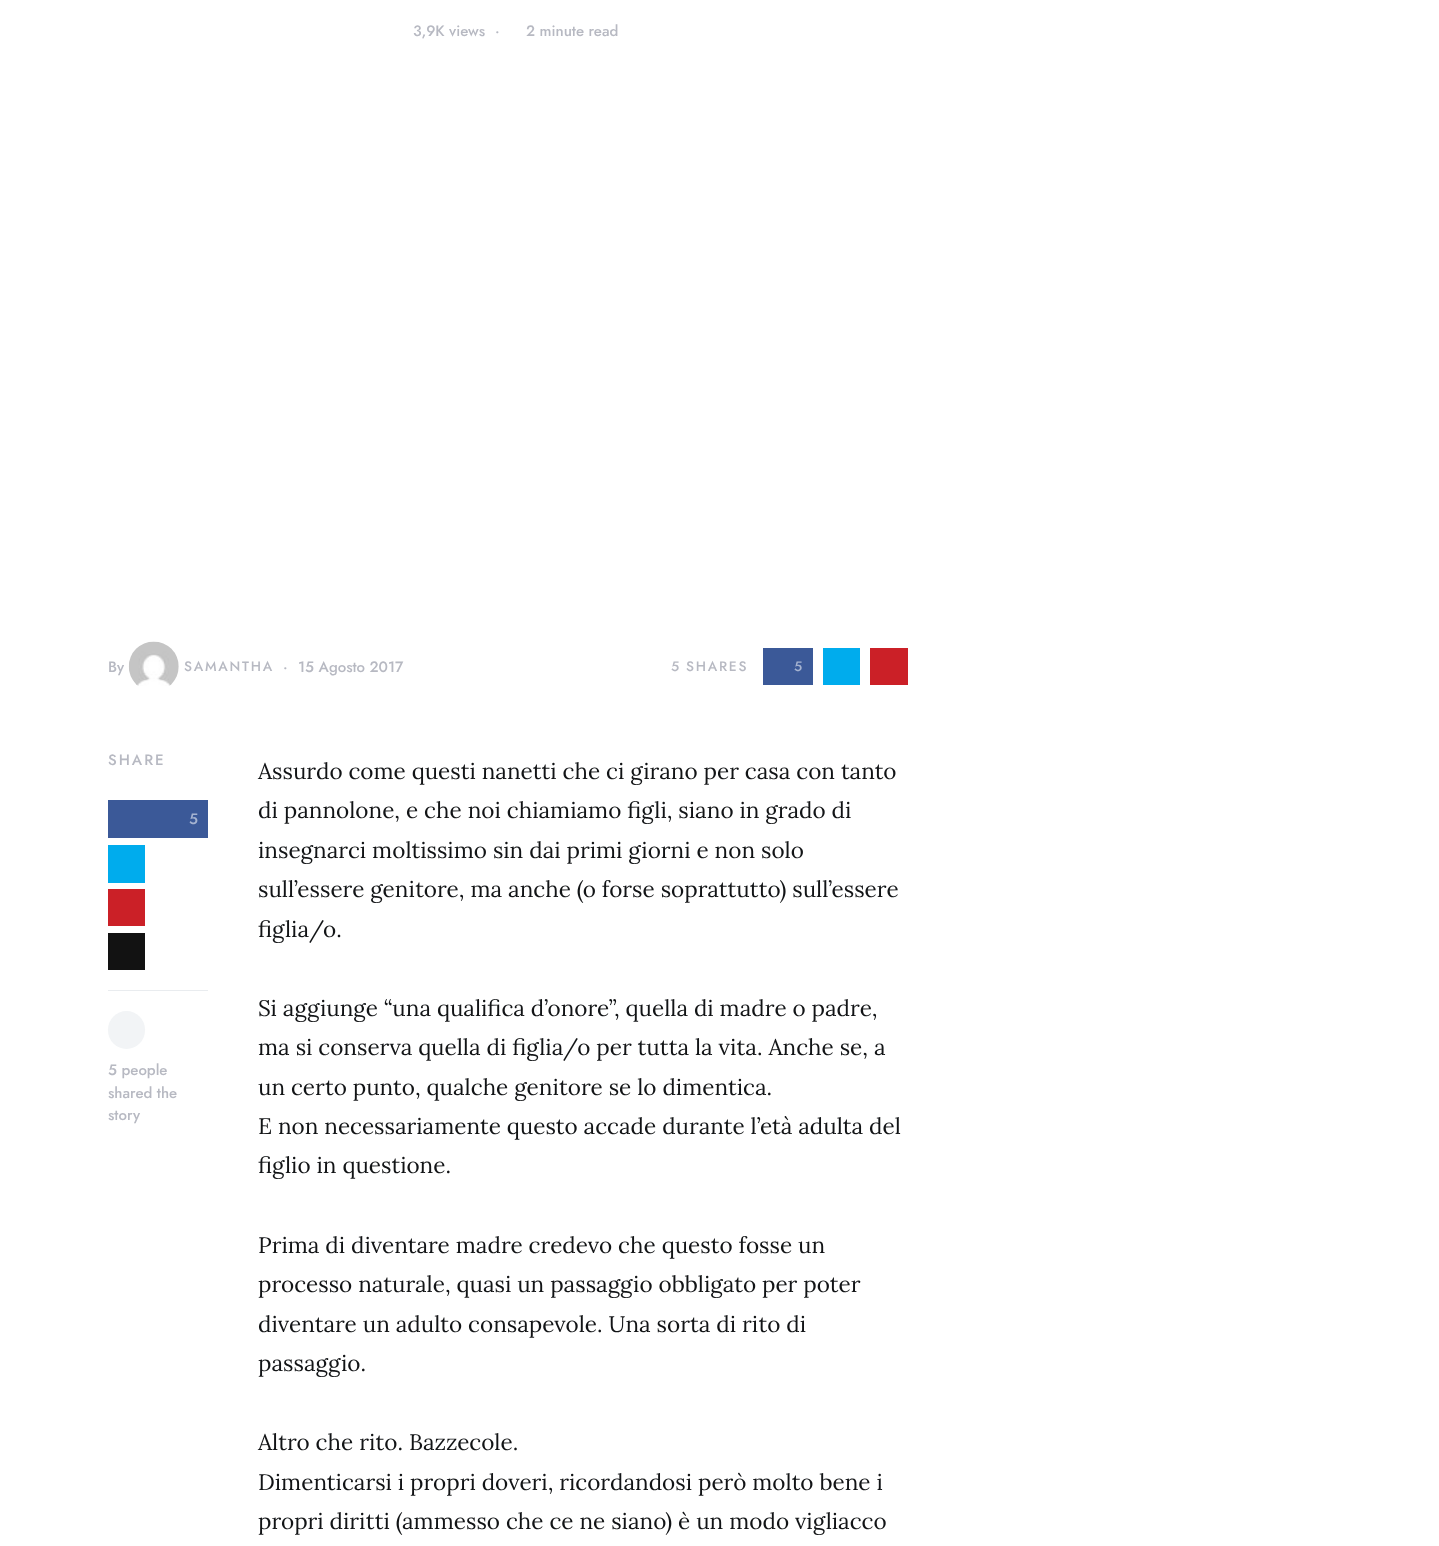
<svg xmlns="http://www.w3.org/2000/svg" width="1439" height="1546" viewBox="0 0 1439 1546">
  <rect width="100%" height="100%" fill="#ffffff"/>
  <text x="413" y="36" font-family="Jost" font-size="15" font-weight="500" fill="#b7b9c2">3,9K views</text>
  <text x="495" y="36" font-family="Jost" font-size="15" font-weight="500" fill="#b7b9c2">·</text>
  <text x="526" y="36" font-family="Jost" font-size="15" font-weight="500" fill="#b7b9c2">2 minute read</text>
  <text x="108" y="672" font-family="Jost" font-size="15" font-weight="500" fill="#b7b9c2">By</text>
  <image x="128" y="641" width="51" height="45" href="img1.png"/>
  <text x="184" y="671" font-family="Jost" font-size="13.75" font-weight="500" letter-spacing="1.75" fill="#b7b9c2">SAMANTHA</text>
  <text x="283" y="672" font-family="Jost" font-size="15" font-weight="500" fill="#b7b9c2">·</text>
  <text x="298" y="672" font-family="Jost" font-size="15" font-weight="500" fill="#b7b9c2">15 Agosto 2017</text>
  <text x="671" y="671" font-family="Jost" font-size="13.75" font-weight="500" letter-spacing="1.75" fill="#b7b9c2">5</text>
  <text x="686" y="671" font-family="Jost" font-size="13.75" font-weight="500" letter-spacing="1.75" fill="#b7b9c2">SHARES</text>
  <rect x="763" y="648" width="50" height="37" fill="#3b5998"/>
  <text x="794" y="671" font-family="Jost" font-size="13.75" font-weight="500" letter-spacing="1.75" fill="#a5b3d0">5</text>
  <rect x="823" y="648" width="37" height="37" fill="#00aced"/>
  <rect x="870" y="648" width="38" height="37" fill="#cb2027"/>
  <text x="108" y="765" font-family="Jost" font-size="15" font-weight="500" letter-spacing="2" fill="#b7b9c2">SHARE</text>
  <rect x="108" y="800" width="100" height="38" fill="#3b5998"/>
  <text x="189" y="824" font-family="Jost" font-size="15" font-weight="500" fill="#a5b3d0">5</text>
  <rect x="108" y="845" width="37" height="38" fill="#00aced"/>
  <rect x="108" y="889" width="37" height="37" fill="#cb2027"/>
  <rect x="108" y="933" width="37" height="37" fill="#121212"/>
  <rect x="108" y="990" width="100" height="1" fill="#e9ecef"/>
  <rect x="108" y="1011" width="37" height="38" rx="18.5" fill="#f2f4f6"/>
  <text x="108" y="1075" font-family="Jost" font-size="15" font-weight="500" fill="#b7b9c2">5 people</text>
  <text x="108" y="1098" font-family="Jost" font-size="15" font-weight="500" fill="#b7b9c2">shared the</text>
  <text x="108" y="1120" font-family="Jost" font-size="15" font-weight="500" fill="#b7b9c2">story</text>
  <text x="258" y="779" font-family="Lora" font-size="22.5" fill="#121416">Assurdo come questi nanetti che ci girano per casa con tanto</text>
  <text x="258" y="818" font-family="Lora" font-size="22.5" fill="#121416">di pannolone, e che noi chiamiamo figli, siano in grado di</text>
  <text x="258" y="858" font-family="Lora" font-size="22.5" fill="#121416">insegnarci moltissimo sin dai primi giorni e non solo</text>
  <text x="258" y="897" font-family="Lora" font-size="22.5" fill="#121416">sull’essere genitore, ma anche (o forse soprattutto) sull’essere</text>
  <text x="258" y="937" font-family="Lora" font-size="22.5" fill="#121416">figlia/o.</text>
  <text x="258" y="1016" font-family="Lora" font-size="22.5" fill="#121416">Si aggiunge “una qualifica d’onore”, quella di madre o padre,</text>
  <text x="258" y="1055" font-family="Lora" font-size="22.5" fill="#121416">ma si conserva quella di figlia/o per tutta la vita. Anche se, a</text>
  <text x="258" y="1095" font-family="Lora" font-size="22.5" fill="#121416">un certo punto, qualche genitore se lo dimentica.</text>
  <text x="258" y="1134" font-family="Lora" font-size="22.5" fill="#121416">E non necessariamente questo accade durante l’età adulta del</text>
  <text x="258" y="1173" font-family="Lora" font-size="22.5" fill="#121416">figlio in questione.</text>
  <text x="258" y="1253" font-family="Lora" font-size="22.5" fill="#121416">Prima di diventare madre credevo che questo fosse un</text>
  <text x="258" y="1292" font-family="Lora" font-size="22.5" fill="#121416">processo naturale, quasi un passaggio obbligato per poter</text>
  <text x="258" y="1332" font-family="Lora" font-size="22.5" fill="#121416">diventare un adulto consapevole. Una sorta di rito di</text>
  <text x="258" y="1371" font-family="Lora" font-size="22.5" fill="#121416">passaggio.</text>
  <text x="258" y="1450" font-family="Lora" font-size="22.5" fill="#121416">Altro che rito. Bazzecole.</text>
  <text x="258" y="1490" font-family="Lora" font-size="22.5" fill="#121416">Dimenticarsi i propri doveri, ricordandosi però molto bene i</text>
  <text x="258" y="1529" font-family="Lora" font-size="22.5" fill="#121416">propri diritti (ammesso che ce ne siano) è un modo vigliacco</text>
</svg>
